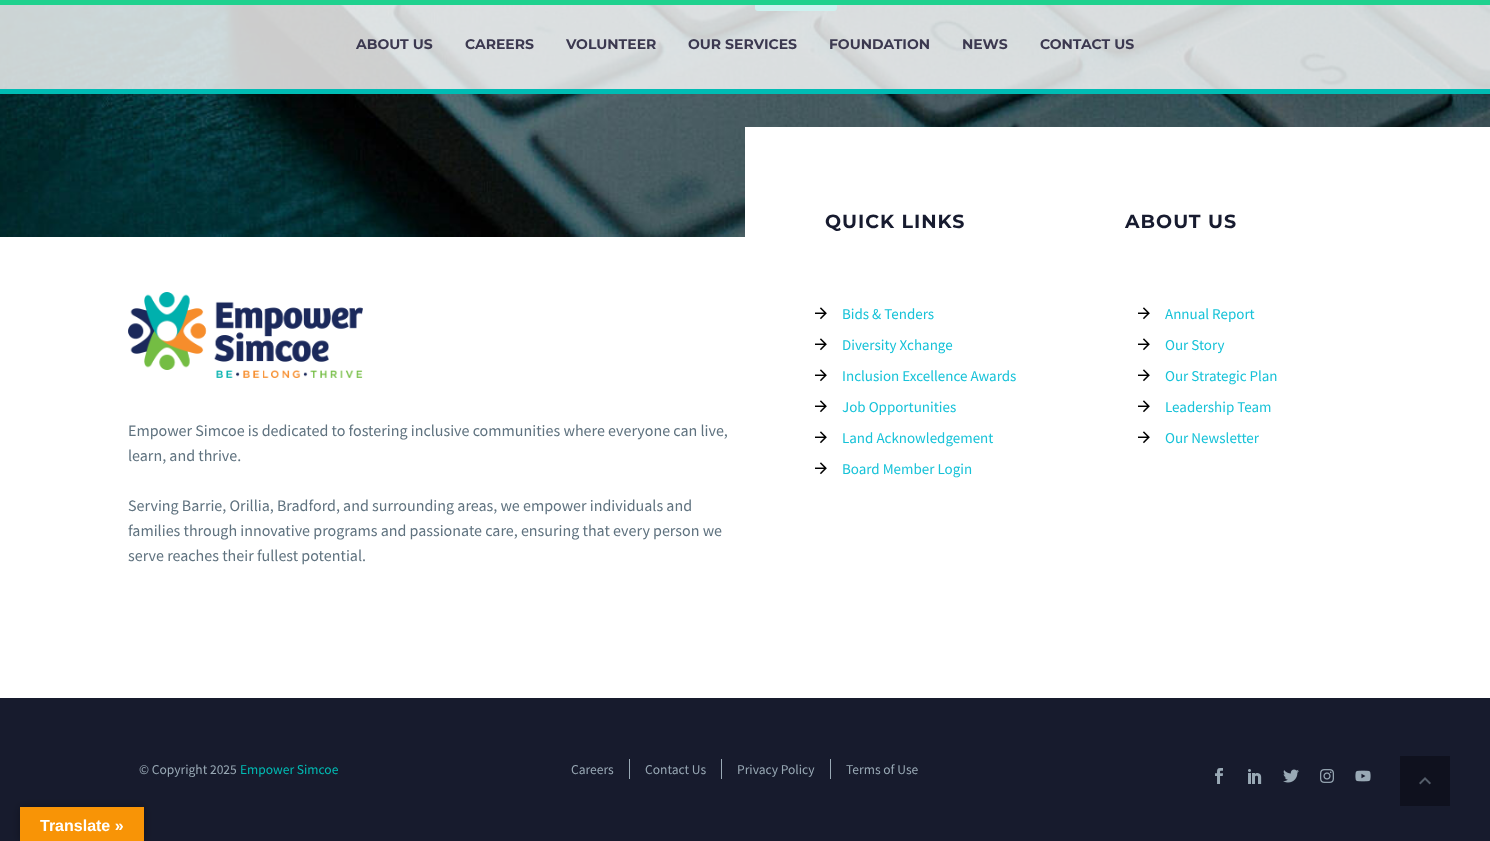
<svg xmlns="http://www.w3.org/2000/svg" width="1490" height="841" viewBox="0 0 1490 841">
  <defs>
    <filter id="blur1" x="-50%" y="-200%" width="200%" height="500%"><feGaussianBlur stdDeviation="4.5"/></filter>
  </defs>
  <rect width="100%" height="100%" fill="#ffffff"/>
  <image x="0" y="5" width="1490" height="232" href="img1.png"/>
  <rect x="755" y="-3" width="82" height="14" rx="3" fill="#00bcb4"/>
  <rect x="0" y="0" width="1490" height="5" fill="#1fd18e"/>
  <rect x="0" y="5" width="1490" height="84" fill="#ffffff" fill-opacity="0.8"/>
  <rect x="0" y="89" width="1490" height="5" fill="#00bcb4"/>
  <text x="356" y="49" font-family="Montserrat" font-size="14" font-weight="bold" fill="#3c3950">ABOUT US</text>
  <text x="465" y="49" font-family="Montserrat" font-size="14" font-weight="bold" fill="#3c3950">CAREERS</text>
  <text x="566" y="49" font-family="Montserrat" font-size="14" font-weight="bold" fill="#3c3950">VOLUNTEER</text>
  <text x="688" y="49" font-family="Montserrat" font-size="14" font-weight="bold" fill="#3c3950">OUR SERVICES</text>
  <text x="829" y="49" font-family="Montserrat" font-size="14" font-weight="bold" fill="#3c3950">FOUNDATION</text>
  <text x="962" y="49" font-family="Montserrat" font-size="14" font-weight="bold" fill="#3c3950">NEWS</text>
  <text x="1040" y="49" font-family="Montserrat" font-size="14" font-weight="bold" fill="#3c3950">CONTACT US</text>
  <rect x="745" y="127" width="745" height="110" fill="#ffffff"/>
  <text x="825" y="228" font-family="Montserrat" font-size="19" font-weight="bold" letter-spacing="1" fill="#171b2f">QUICK LINKS</text>
  <text x="1125" y="228" font-family="Montserrat" font-size="19" font-weight="bold" letter-spacing="1" fill="#171b2f">ABOUT US</text>
  <image x="815" y="307" width="12" height="13" href="img2.png"/>
  <text x="842" y="319" font-family="Source Sans Pro" font-size="15" fill="#16c2d8">Bids &amp; Tenders</text>
  <image x="815" y="338" width="12" height="13" href="img2.png"/>
  <text x="842" y="350" font-family="Source Sans Pro" font-size="15" fill="#16c2d8">Diversity Xchange</text>
  <image x="815" y="369" width="12" height="13" href="img2.png"/>
  <text x="842" y="381" font-family="Source Sans Pro" font-size="15" fill="#16c2d8">Inclusion Excellence Awards</text>
  <image x="815" y="400" width="12" height="13" href="img2.png"/>
  <text x="842" y="412" font-family="Source Sans Pro" font-size="15" fill="#16c2d8">Job Opportunities</text>
  <image x="815" y="431" width="12" height="13" href="img2.png"/>
  <text x="842" y="443" font-family="Source Sans Pro" font-size="15" fill="#16c2d8">Land Acknowledgement</text>
  <image x="815" y="462" width="12" height="13" href="img2.png"/>
  <text x="842" y="474" font-family="Source Sans Pro" font-size="15" fill="#16c2d8">Board Member Login</text>
  <image x="1138" y="307" width="12" height="13" href="img2.png"/>
  <text x="1165" y="319" font-family="Source Sans Pro" font-size="15" fill="#16c2d8">Annual Report</text>
  <image x="1138" y="338" width="12" height="13" href="img2.png"/>
  <text x="1165" y="350" font-family="Source Sans Pro" font-size="15" fill="#16c2d8">Our Story</text>
  <image x="1138" y="369" width="12" height="13" href="img2.png"/>
  <text x="1165" y="381" font-family="Source Sans Pro" font-size="15" fill="#16c2d8">Our Strategic Plan</text>
  <image x="1138" y="400" width="12" height="13" href="img2.png"/>
  <text x="1165" y="412" font-family="Source Sans Pro" font-size="15" fill="#16c2d8">Leadership Team</text>
  <image x="1138" y="431" width="12" height="13" href="img2.png"/>
  <text x="1165" y="443" font-family="Source Sans Pro" font-size="15" fill="#16c2d8">Our Newsletter</text>
  <image x="128" y="292" width="235" height="86" href="img3.png"/>
  <text x="128" y="436" font-family="Source Sans Pro" font-size="16" fill="#5f727f">Empower Simcoe is dedicated to fostering inclusive communities where everyone can live,</text>
  <text x="128" y="461" font-family="Source Sans Pro" font-size="16" fill="#5f727f">learn, and thrive.</text>
  <text x="128" y="511" font-family="Source Sans Pro" font-size="16" fill="#5f727f">Serving Barrie, Orillia, Bradford, and surrounding areas, we empower individuals and</text>
  <text x="128" y="536" font-family="Source Sans Pro" font-size="16" fill="#5f727f">families through innovative programs and passionate care, ensuring that every person we</text>
  <text x="128" y="561" font-family="Source Sans Pro" font-size="16" fill="#5f727f">serve reaches their fullest potential.</text>
  <rect x="0" y="698" width="1490" height="143" fill="#171b2d"/>
  <text x="139" y="774" font-family="Source Sans Pro" font-size="13.5" fill="#99a9b5">© Copyright 2025</text>
  <text x="240" y="774" font-family="Source Sans Pro" font-size="13.5" fill="#00bcb4">Empower Simcoe</text>
  <text x="571" y="774" font-family="Source Sans Pro" font-size="13.5" fill="#99a9b5">Careers</text>
  <rect x="629" y="759" width="1" height="20" fill="#99a9b5"/>
  <text x="645" y="774" font-family="Source Sans Pro" font-size="13.5" fill="#99a9b5">Contact Us</text>
  <rect x="721" y="759" width="1" height="20" fill="#99a9b5"/>
  <text x="737" y="774" font-family="Source Sans Pro" font-size="13.5" fill="#99a9b5">Privacy Policy</text>
  <rect x="830" y="759" width="1" height="20" fill="#99a9b5"/>
  <text x="846" y="774" font-family="Source Sans Pro" font-size="13.5" fill="#99a9b5">Terms of Use</text>
  <image x="1215" y="768" width="8" height="16" href="img4.png"/>
  <image x="1248" y="769" width="14" height="15" href="img5.png"/>
  <image x="1283" y="769" width="16" height="14" href="img6.png"/>
  <image x="1320" y="769" width="14" height="14" href="img7.png"/>
  <image x="1355" y="770" width="16" height="12" href="img8.png"/>
  <rect x="1400" y="756" width="50" height="50" fill="#0f111e"/>
  <image x="1419" y="777" width="12" height="8" href="img9.png"/>
  <rect x="20" y="807" width="124" height="34" fill="#000000" fill-opacity="0.3" filter="url(#blur1)"/>
  <rect x="20" y="807" width="124" height="34" fill="#f89406"/>
  <text x="40" y="831" font-family="Liberation Sans" font-size="16" font-weight="bold" fill="#ffffff">Translate »</text>
</svg>
